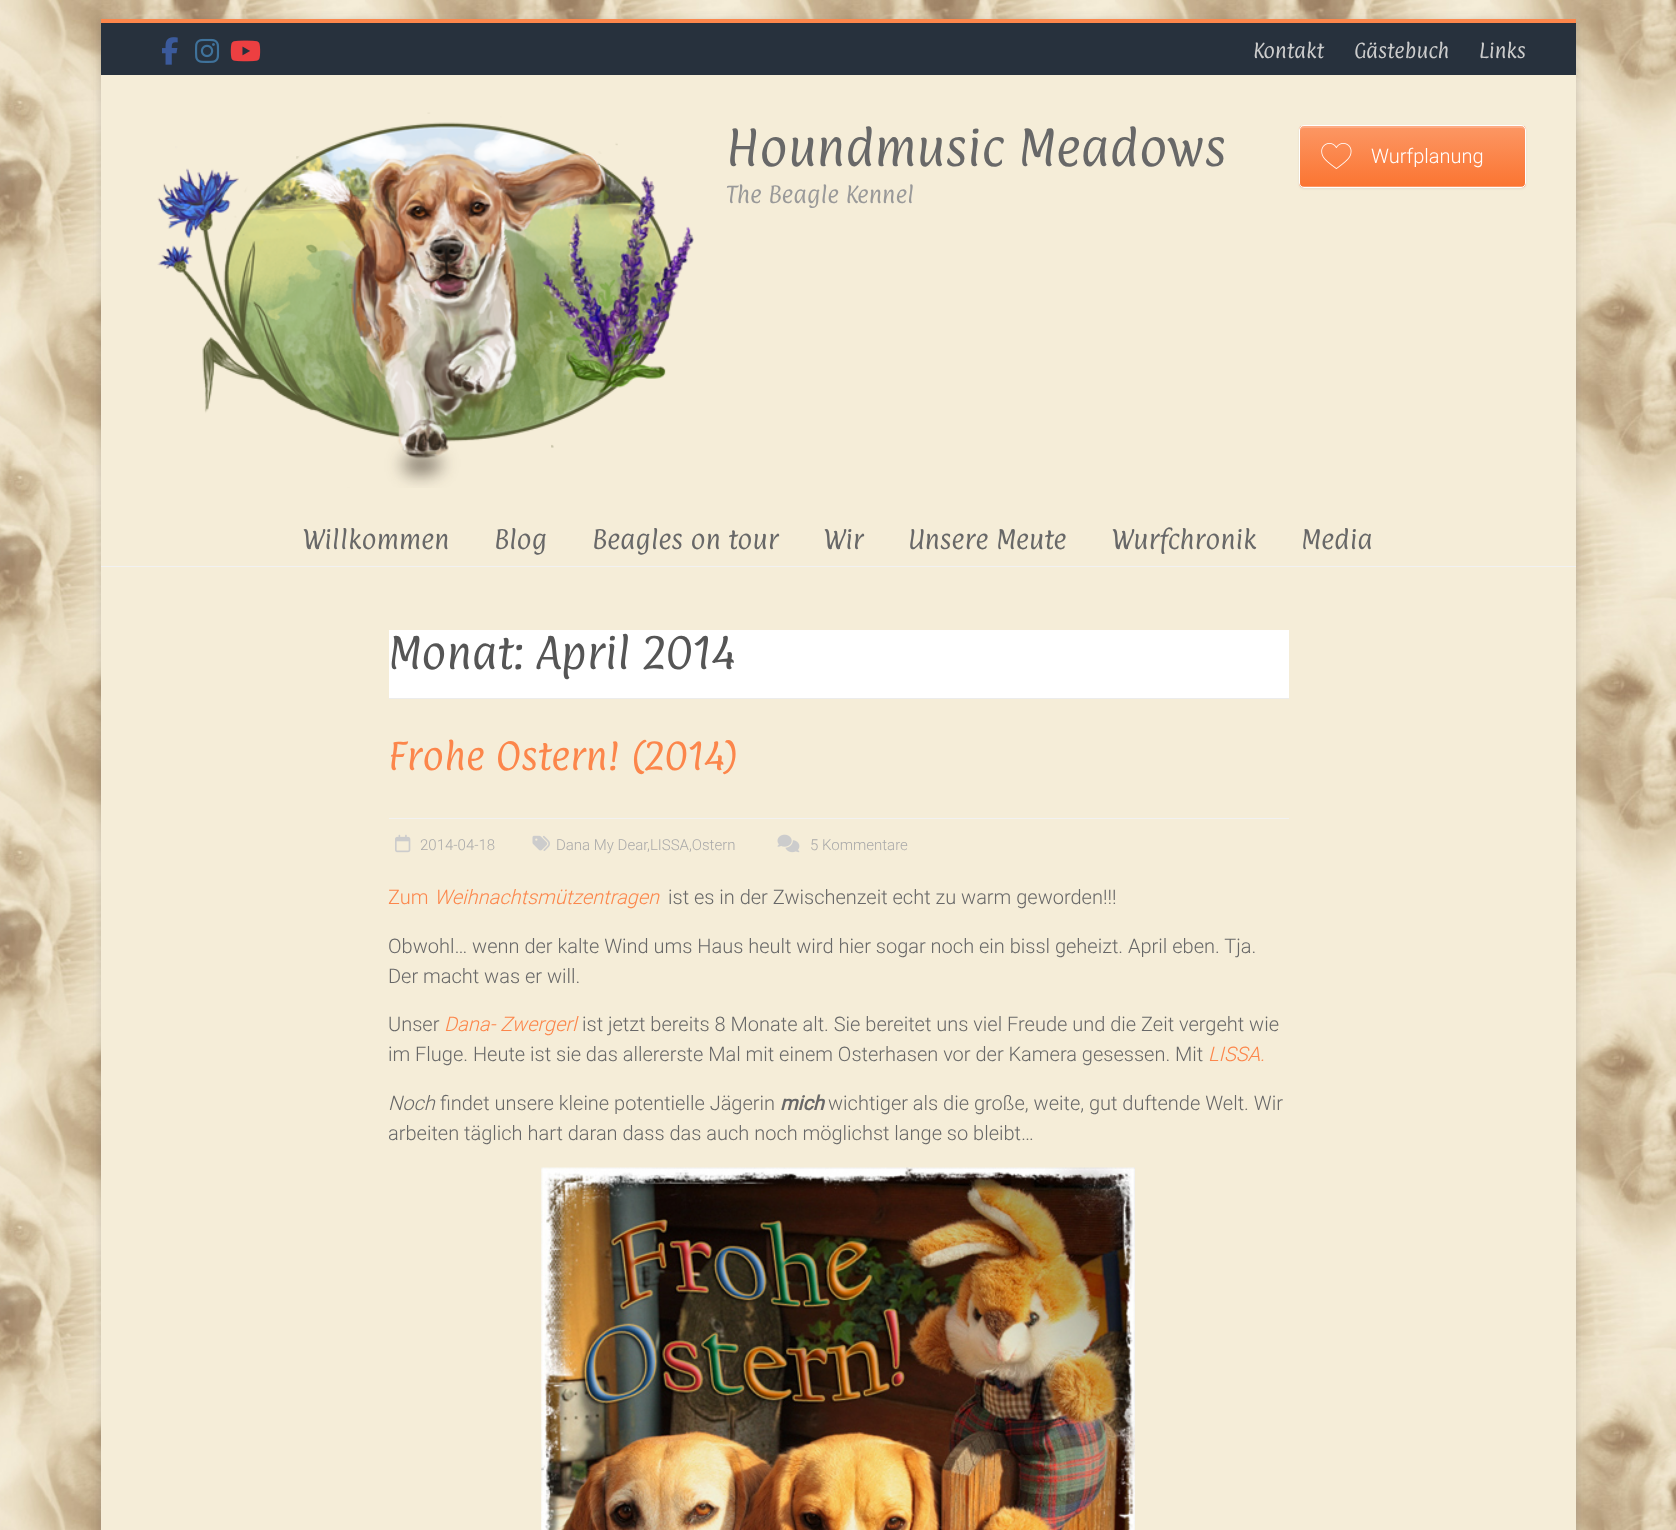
<svg xmlns="http://www.w3.org/2000/svg" width="1676" height="1530" viewBox="0 0 1676 1530">
  <defs>
    <filter id="blur1" x="-50%" y="-200%" width="200%" height="500%"><feGaussianBlur stdDeviation="4"/></filter>
    <filter id="blur2" x="-50%" y="-200%" width="200%" height="500%"><feGaussianBlur stdDeviation="1"/></filter>
    <clipPath id="clip1"><rect x="1299" y="125" width="227" height="63" rx="5"/></clipPath>
    <linearGradient id="g1" gradientUnits="userSpaceOnUse" x1="1300" y1="186" x2="1300" y2="126"><stop offset="0" stop-color="#fb7532"/><stop offset="1" stop-color="#fc9764"/></linearGradient>
    <linearGradient id="g2" gradientUnits="userSpaceOnUse" x1="1300" y1="246" x2="1300" y2="186"><stop offset="0" stop-color="#fb7532"/><stop offset="1" stop-color="#fc9764"/></linearGradient>
  </defs>
  <rect width="100%" height="100%" fill="#ffffff"/>
  <image x="0" y="0" width="1676" height="1530" href="img1.png"/>
  <rect x="101" y="21" width="1475" height="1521" fill="#646464" fill-opacity="0.3" filter="url(#blur1)"/>
  <rect x="101" y="19" width="1475" height="4" fill="#fc864b"/>
  <rect x="101" y="23" width="1475" height="52" fill="#27313d"/>
  <image x="162" y="37" width="16" height="28" href="img2.png"/>
  <image x="195" y="38" width="25" height="25" href="img3.png"/>
  <image x="230" y="40" width="31" height="22" href="img4.png"/>
  <text x="1253" y="58" font-family="Paprika" font-size="17.5" fill="#cccccc">Kontakt</text>
  <text x="1354" y="58" font-family="Paprika" font-size="17.5" fill="#cccccc">Gästebuch</text>
  <text x="1479" y="58" font-family="Paprika" font-size="17.5" fill="#cccccc">Links</text>
  <rect x="101" y="75" width="1475" height="1455" fill="#f5edd8"/>
  <rect x="101" y="566" width="1475" height="1" fill="#f2f2f2"/>
  <image x="157" y="112" width="537" height="376" href="img5.png"/>
  <text x="726" y="166" font-family="Paprika" font-size="42.5" fill="#686868">Houndmusic Meadows</text>
  <text x="726" y="203" font-family="Paprika" font-size="20" fill="#999999">The Beagle Kennel</text>
  <rect x="1299" y="126" width="227" height="63" rx="5" fill="#000000" fill-opacity="0.07" filter="url(#blur2)"/>
  <g clip-path="url(#clip1)">
    <rect x="1299" y="126" width="227" height="60" fill="url(#g1)"/>
    <rect x="1299" y="186" width="227" height="2" fill="url(#g2)"/>
  </g>
  <path d="M1304 128H1521C1523 128 1525 129 1525 131C1525 128 1524 126 1521 126H1304C1301 126 1300 128 1300 131C1300 129 1302 128 1304 128Z" fill="#fdab83"/>
  <rect x="1299.5" y="125.5" width="226" height="62" rx="4.5" fill="none" stroke="#ffffff"/>
  <image x="1321" y="143" width="31" height="26" href="img6.png"/>
  <text x="1371" y="163" font-family="Roboto" font-size="20" font-weight="300" fill="#ffffff">Wurfplanung</text>
  <text x="303" y="549" font-family="Paprika" font-size="22.5" fill="#686868">Willkommen</text>
  <text x="494" y="549" font-family="Paprika" font-size="22.5" fill="#686868">Blog</text>
  <text x="592" y="549" font-family="Paprika" font-size="22.5" fill="#686868">Beagles on tour</text>
  <text x="824" y="549" font-family="Paprika" font-size="22.5" fill="#686868">Wir</text>
  <text x="908" y="549" font-family="Paprika" font-size="22.5" fill="#686868">Unsere Meute</text>
  <text x="1112" y="549" font-family="Paprika" font-size="22.5" fill="#686868">Wurfchronik</text>
  <text x="1301" y="549" font-family="Paprika" font-size="22.5" fill="#686868">Media</text>
  <rect x="389" y="630" width="900" height="68" fill="#ffffff"/>
  <rect x="389" y="698" width="900" height="1" fill="#ececec"/>
  <text x="388" y="669" font-family="Paprika" font-size="37.5" fill="#555555">Monat: April 2014</text>
  <text x="388" y="770" font-family="Paprika" font-size="32.5" fill="#fc864b">Frohe Ostern! (2014)</text>
  <rect x="389" y="818" width="900" height="1" fill="#f2f2f2"/>
  <image x="395" y="834" width="16" height="19" href="img7.png"/>
  <text x="420" y="850" font-family="Roboto" font-size="15" font-weight="300" fill="#aaaaaa">2014-04-18</text>
  <image x="532" y="835" width="18" height="16" href="img8.png"/>
  <text x="556" y="850" font-family="Roboto" font-size="15" font-weight="300" fill="#aaaaaa">Dana My Dear</text>
  <text x="647" y="850" font-family="Roboto" font-size="15" font-weight="300" fill="#aaaaaa">,LISSA,Ostern</text>
  <image x="777" y="834" width="23" height="19" href="img9.png"/>
  <text x="810" y="850" font-family="Roboto" font-size="15" font-weight="300" fill="#aaaaaa">5 Kommentare</text>
  <text x="388" y="904" font-family="Roboto" font-size="20" font-weight="300" fill="#fc864b">Zum</text>
  <text x="434" y="904" font-family="Roboto" font-size="20" font-weight="300" font-style="italic" fill="#fc864b">Weihnachtsmützentragen</text>
  <text x="668" y="904" font-family="Roboto" font-size="20" font-weight="300" fill="#686868">ist es in der Zwischenzeit echt zu warm geworden!!!</text>
  <text x="388" y="953" font-family="Roboto" font-size="20" font-weight="300" fill="#686868">Obwohl… wenn der kalte Wind ums Haus heult wird hier sogar noch ein bissl geheizt. April eben. Tja.</text>
  <text x="388" y="983" font-family="Roboto" font-size="20" font-weight="300" fill="#686868">Der macht was er will.</text>
  <text x="388" y="1031" font-family="Roboto" font-size="20" font-weight="300" fill="#686868">Unser</text>
  <text x="444" y="1031" font-family="Roboto" font-size="20" font-weight="300" font-style="italic" fill="#fc864b">Dana- Zwergerl</text>
  <text x="582" y="1031" font-family="Roboto" font-size="20" font-weight="300" fill="#686868">ist jetzt bereits 8 Monate alt. Sie bereitet uns viel Freude und die Zeit vergeht wie</text>
  <text x="388" y="1061" font-family="Roboto" font-size="20" font-weight="300" fill="#686868">im Fluge. Heute ist sie das allererste Mal mit einem Osterhasen vor der Kamera gesessen. Mit</text>
  <text x="1208" y="1061" font-family="Roboto" font-size="20" font-weight="300" font-style="italic" fill="#fc864b">LISSA.</text>
  <text x="388" y="1110" font-family="Roboto" font-size="20" font-weight="300" font-style="italic" fill="#686868">Noch</text>
  <text x="440" y="1110" font-family="Roboto" font-size="20" font-weight="300" fill="#686868">findet unsere kleine potentielle Jägerin</text>
  <text x="780" y="1110" font-family="Roboto" font-size="20" font-weight="bold" font-style="italic" fill="#686868">mich</text>
  <text x="828" y="1110" font-family="Roboto" font-size="20" font-weight="300" fill="#686868">wichtiger als die große, weite, gut duftende Welt. Wir</text>
  <text x="388" y="1140" font-family="Roboto" font-size="20" font-weight="300" fill="#686868">arbeiten täglich hart daran dass das auch noch möglichst lange so bleibt…</text>
  <image x="541" y="1167" width="594" height="363" href="img10.png"/>
</svg>
